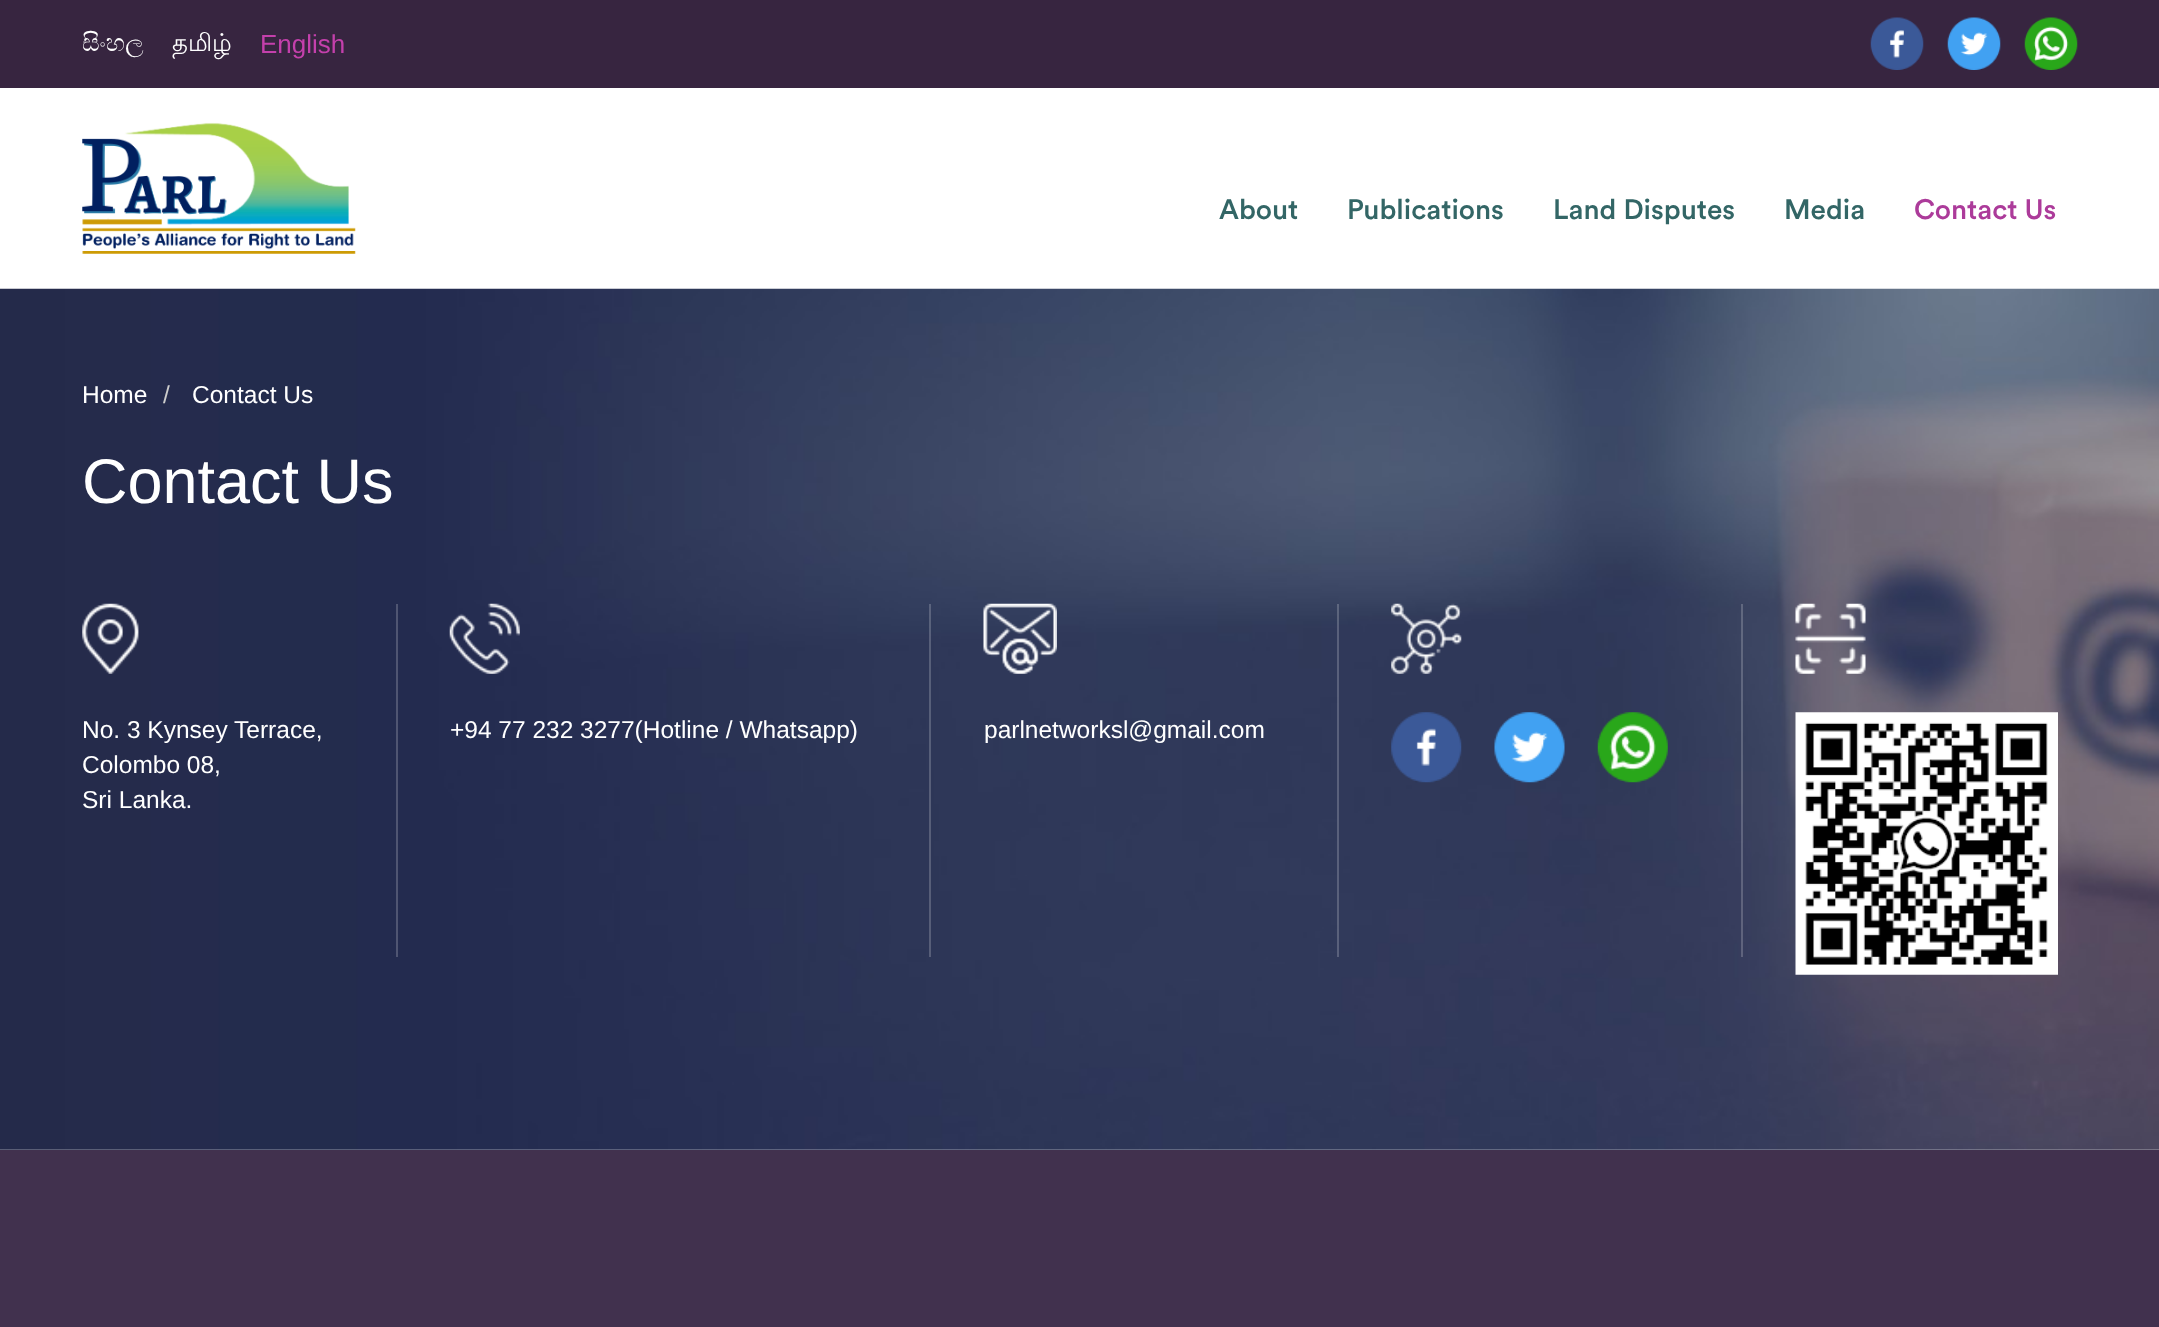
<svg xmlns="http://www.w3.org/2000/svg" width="2159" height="1327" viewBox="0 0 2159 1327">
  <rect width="100%" height="100%" fill="#ffffff"/>
  <rect x="0" y="0" width="2159" height="88" fill="#372540"/>
  <text x="82" y="51" font-family="FreeSerif" font-size="24.5" fill="#ffffff">සිංහල</text>
  <text x="172" y="51" font-family="Lohit Tamil" font-size="24.5" fill="#ffffff">தமிழ்</text>
  <text x="260" y="53" font-family="Liberation Sans" font-size="26" fill="#c440ac">English</text>
  <image x="1870" y="17" width="54" height="53" href="img1.png"/>
  <image x="1947" y="17" width="54" height="53" href="img2.png"/>
  <image x="2024" y="17" width="54" height="53" href="img3.png"/>
  <image x="82" y="122" width="274" height="132" href="img4.png"/>
  <text x="1219" y="219" font-family="Circular" font-size="28" font-weight="500" fill="#336666">About</text>
  <text x="1347" y="219" font-family="Circular" font-size="28" font-weight="500" fill="#336666">Publications</text>
  <text x="1553" y="219" font-family="Circular" font-size="28" font-weight="500" fill="#336666">Land Disputes</text>
  <text x="1784" y="219" font-family="Circular" font-size="28" font-weight="500" fill="#336666">Media</text>
  <text x="1914" y="219" font-family="Circular" font-size="28" font-weight="500" fill="#ac3b9a">Contact Us</text>
  <image x="0" y="288" width="2159" height="862" href="img5.png"/>
  <text x="82" y="403" font-family="Liberation Sans" font-size="24.5" fill="#ffffff">Home</text>
  <text x="163" y="403" font-family="Liberation Sans" font-size="24.5" fill="#cccccc">/</text>
  <text x="192" y="403" font-family="Liberation Sans" font-size="24.5" fill="#ffffff">Contact Us</text>
  <text x="82" y="503" font-family="Liberation Sans" font-size="63" fill="#ffffff">Contact Us</text>
  <rect x="396" y="604" width="2" height="353" fill="#4f5572"/>
  <image x="82" y="603" width="57" height="71" href="img6.png"/>
  <text x="82" y="738" font-family="Liberation Sans" font-size="24.5" fill="#ffffff">No. 3 Kynsey Terrace,</text>
  <text x="82" y="773" font-family="Liberation Sans" font-size="24.5" fill="#ffffff">Colombo 08,</text>
  <text x="82" y="808" font-family="Liberation Sans" font-size="24.5" fill="#ffffff">Sri Lanka.</text>
  <rect x="929" y="604" width="2" height="353" fill="#ffffff" fill-opacity="0.2"/>
  <image x="449" y="603" width="71" height="71" href="img7.png"/>
  <text x="450" y="738" font-family="Liberation Sans" font-size="24.5" fill="#ffffff">+94 77 232 3277(Hotline / Whatsapp)</text>
  <rect x="1337" y="604" width="2" height="353" fill="#ffffff" fill-opacity="0.2"/>
  <image x="983" y="603" width="74" height="71" href="img8.png"/>
  <text x="984" y="738" font-family="Liberation Sans" font-size="24.5" fill="#ffffff">parlnetworksl@gmail.com</text>
  <rect x="1741" y="604" width="2" height="353" fill="#ffffff" fill-opacity="0.2"/>
  <image x="1391" y="603" width="71" height="71" href="img9.png"/>
  <image x="1391" y="712" width="71" height="71" href="img10.png"/>
  <image x="1494" y="712" width="71" height="71" href="img11.png"/>
  <image x="1597" y="712" width="71" height="71" href="img12.png"/>
  <image x="1795" y="603" width="71" height="71" href="img13.png"/>
  <image x="1795" y="712" width="263" height="263" href="img14.png"/>
  <rect x="0" y="1150" width="2159" height="177" fill="#41314e"/>
</svg>
